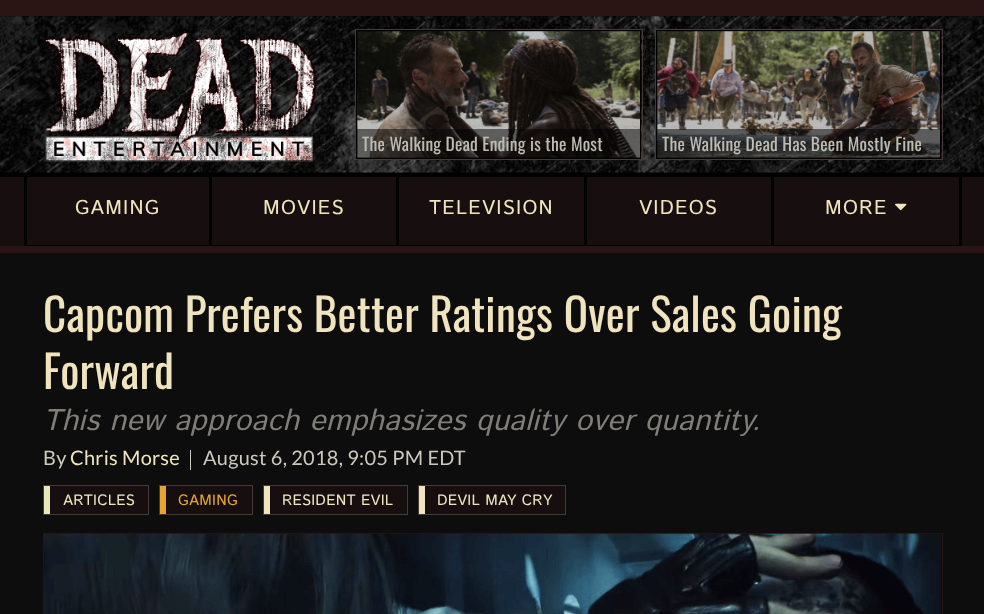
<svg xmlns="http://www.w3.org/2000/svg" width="984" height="614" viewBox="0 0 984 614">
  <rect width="100%" height="100%" fill="#0d0d0d"/>
  <rect x="0" y="0" width="984" height="16" fill="#2a1414"/>
  <rect x="0" y="16" width="984" height="157" fill="#010101"/>
  <image x="0" y="16" width="984" height="157" href="img1.png"/>
  <image x="44" y="31" width="273" height="131" href="img2.png"/>
  <rect x="355.5" y="29.5" width="287" height="130" fill="none" stroke="#483838"/>
  <rect x="356.5" y="30.5" width="284" height="128" fill="none" stroke="#000000"/>
  <image x="357" y="31" width="283" height="127" href="img3.png"/>
  <rect x="357" y="129" width="283" height="29" fill="#000000" fill-opacity="0.5"/>
  <text x="362" y="151" font-family="Oswald" font-size="17.5" letter-spacing="0.25" fill="#edeade">The Walking Dead Ending is the Most</text>
  <rect x="357" y="31" width="283" height="127" fill="#000000" fill-opacity="0.2"/>
  <rect x="655.5" y="29.5" width="287" height="130" fill="none" stroke="#483838"/>
  <rect x="656.5" y="30.5" width="284" height="128" fill="none" stroke="#000000"/>
  <image x="657" y="31" width="283" height="127" href="img4.png"/>
  <rect x="657" y="129" width="283" height="29" fill="#000000" fill-opacity="0.5"/>
  <text x="662" y="151" font-family="Oswald" font-size="17.5" letter-spacing="0.25" fill="#edeade">The Walking Dead Has Been Mostly Fine</text>
  <rect x="657" y="31" width="283" height="127" fill="#000000" fill-opacity="0.2"/>
  <rect x="0" y="177" width="984" height="69" fill="#170f0f"/>
  <rect x="0" y="173" width="984" height="4" fill="#000000"/>
  <rect x="0" y="246" width="984" height="7" fill="#2a1414"/>
  <rect x="24" y="245" width="937" height="1" fill="#000000"/>
  <rect x="209" y="176" width="3" height="69" fill="#000000"/>
  <rect x="24" y="176" width="3" height="69" fill="#000000"/>
  <text x="75" y="214" font-family="Istok Web" font-size="20" letter-spacing="1.25" fill="#efe4bd">GAMING</text>
  <rect x="396" y="176" width="3" height="69" fill="#000000"/>
  <text x="263" y="214" font-family="Istok Web" font-size="20" letter-spacing="1.25" fill="#efe4bd">MOVIES</text>
  <rect x="584" y="176" width="3" height="69" fill="#000000"/>
  <text x="429" y="214" font-family="Istok Web" font-size="20" letter-spacing="1.25" fill="#efe4bd">TELEVISION</text>
  <rect x="771" y="176" width="3" height="69" fill="#000000"/>
  <text x="639" y="214" font-family="Istok Web" font-size="20" letter-spacing="1.25" fill="#efe4bd">VIDEOS</text>
  <rect x="959" y="176" width="3" height="69" fill="#000000"/>
  <text x="825" y="214" font-family="Istok Web" font-size="20" letter-spacing="1.25" fill="#efe4bd">MORE</text>
  <image x="895" y="203" width="12" height="8" href="img5.png"/>
  <text x="43" y="332" font-family="Oswald" font-size="45" letter-spacing="0.25" fill="#efe4bd">Capcom Prefers Better Ratings Over Sales Going</text>
  <text x="43" y="389" font-family="Oswald" font-size="45" letter-spacing="0.25" fill="#efe4bd">Forward</text>
  <text x="43" y="430" font-family="Istok Web" font-size="30" font-style="italic" letter-spacing="0.25" fill="#807e78">This new approach emphasizes quality over quantity.</text>
  <text x="43" y="465" font-family="Lato" font-size="20" letter-spacing="0.25" fill="#cbc8be">By</text>
  <text x="70" y="465" font-family="Lato" font-size="20" letter-spacing="0.25" fill="#efe4bd">Chris Morse</text>
  <rect x="190" y="450" width="1" height="20" fill="#cbc8be"/>
  <text x="203" y="465" font-family="Lato" font-size="20" letter-spacing="0.25" fill="#cbc8be">August 6, 2018, 9:05 PM EDT</text>
  <rect x="50" y="486" width="98" height="28" fill="#170f0f"/>
  <rect x="43.5" y="485.5" width="105" height="29" fill="none" stroke="#483838"/>
  <rect x="44" y="486" width="6" height="28" fill="#e8e7ba"/>
  <text x="63" y="505" font-family="Istok Web" font-size="15" letter-spacing="0.25" fill="#e8e7ba">ARTICLES</text>
  <rect x="166" y="486" width="86" height="28" fill="#170f0f"/>
  <rect x="159.5" y="485.5" width="93" height="29" fill="none" stroke="#483838"/>
  <rect x="160" y="486" width="6" height="28" fill="#e8a42e"/>
  <text x="178" y="505" font-family="Istok Web" font-size="15" letter-spacing="0.25" fill="#e8a42e">GAMING</text>
  <rect x="270" y="486" width="137" height="28" fill="#170f0f"/>
  <rect x="263.5" y="485.5" width="144" height="29" fill="none" stroke="#483838"/>
  <rect x="264" y="486" width="6" height="28" fill="#efe4bd"/>
  <text x="282" y="505" font-family="Istok Web" font-size="15" letter-spacing="0.25" fill="#efe4bd">RESIDENT EVIL</text>
  <rect x="425" y="486" width="140" height="28" fill="#170f0f"/>
  <rect x="418.5" y="485.5" width="147" height="29" fill="none" stroke="#483838"/>
  <rect x="419" y="486" width="6" height="28" fill="#efe4bd"/>
  <text x="437" y="505" font-family="Istok Web" font-size="15" letter-spacing="0.25" fill="#efe4bd">DEVIL MAY CRY</text>
  <rect x="43.5" y="533.5" width="899" height="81" fill="none" stroke="#2a1414"/>
  <image x="43" y="533" width="898" height="81" href="img6.png"/>
</svg>
